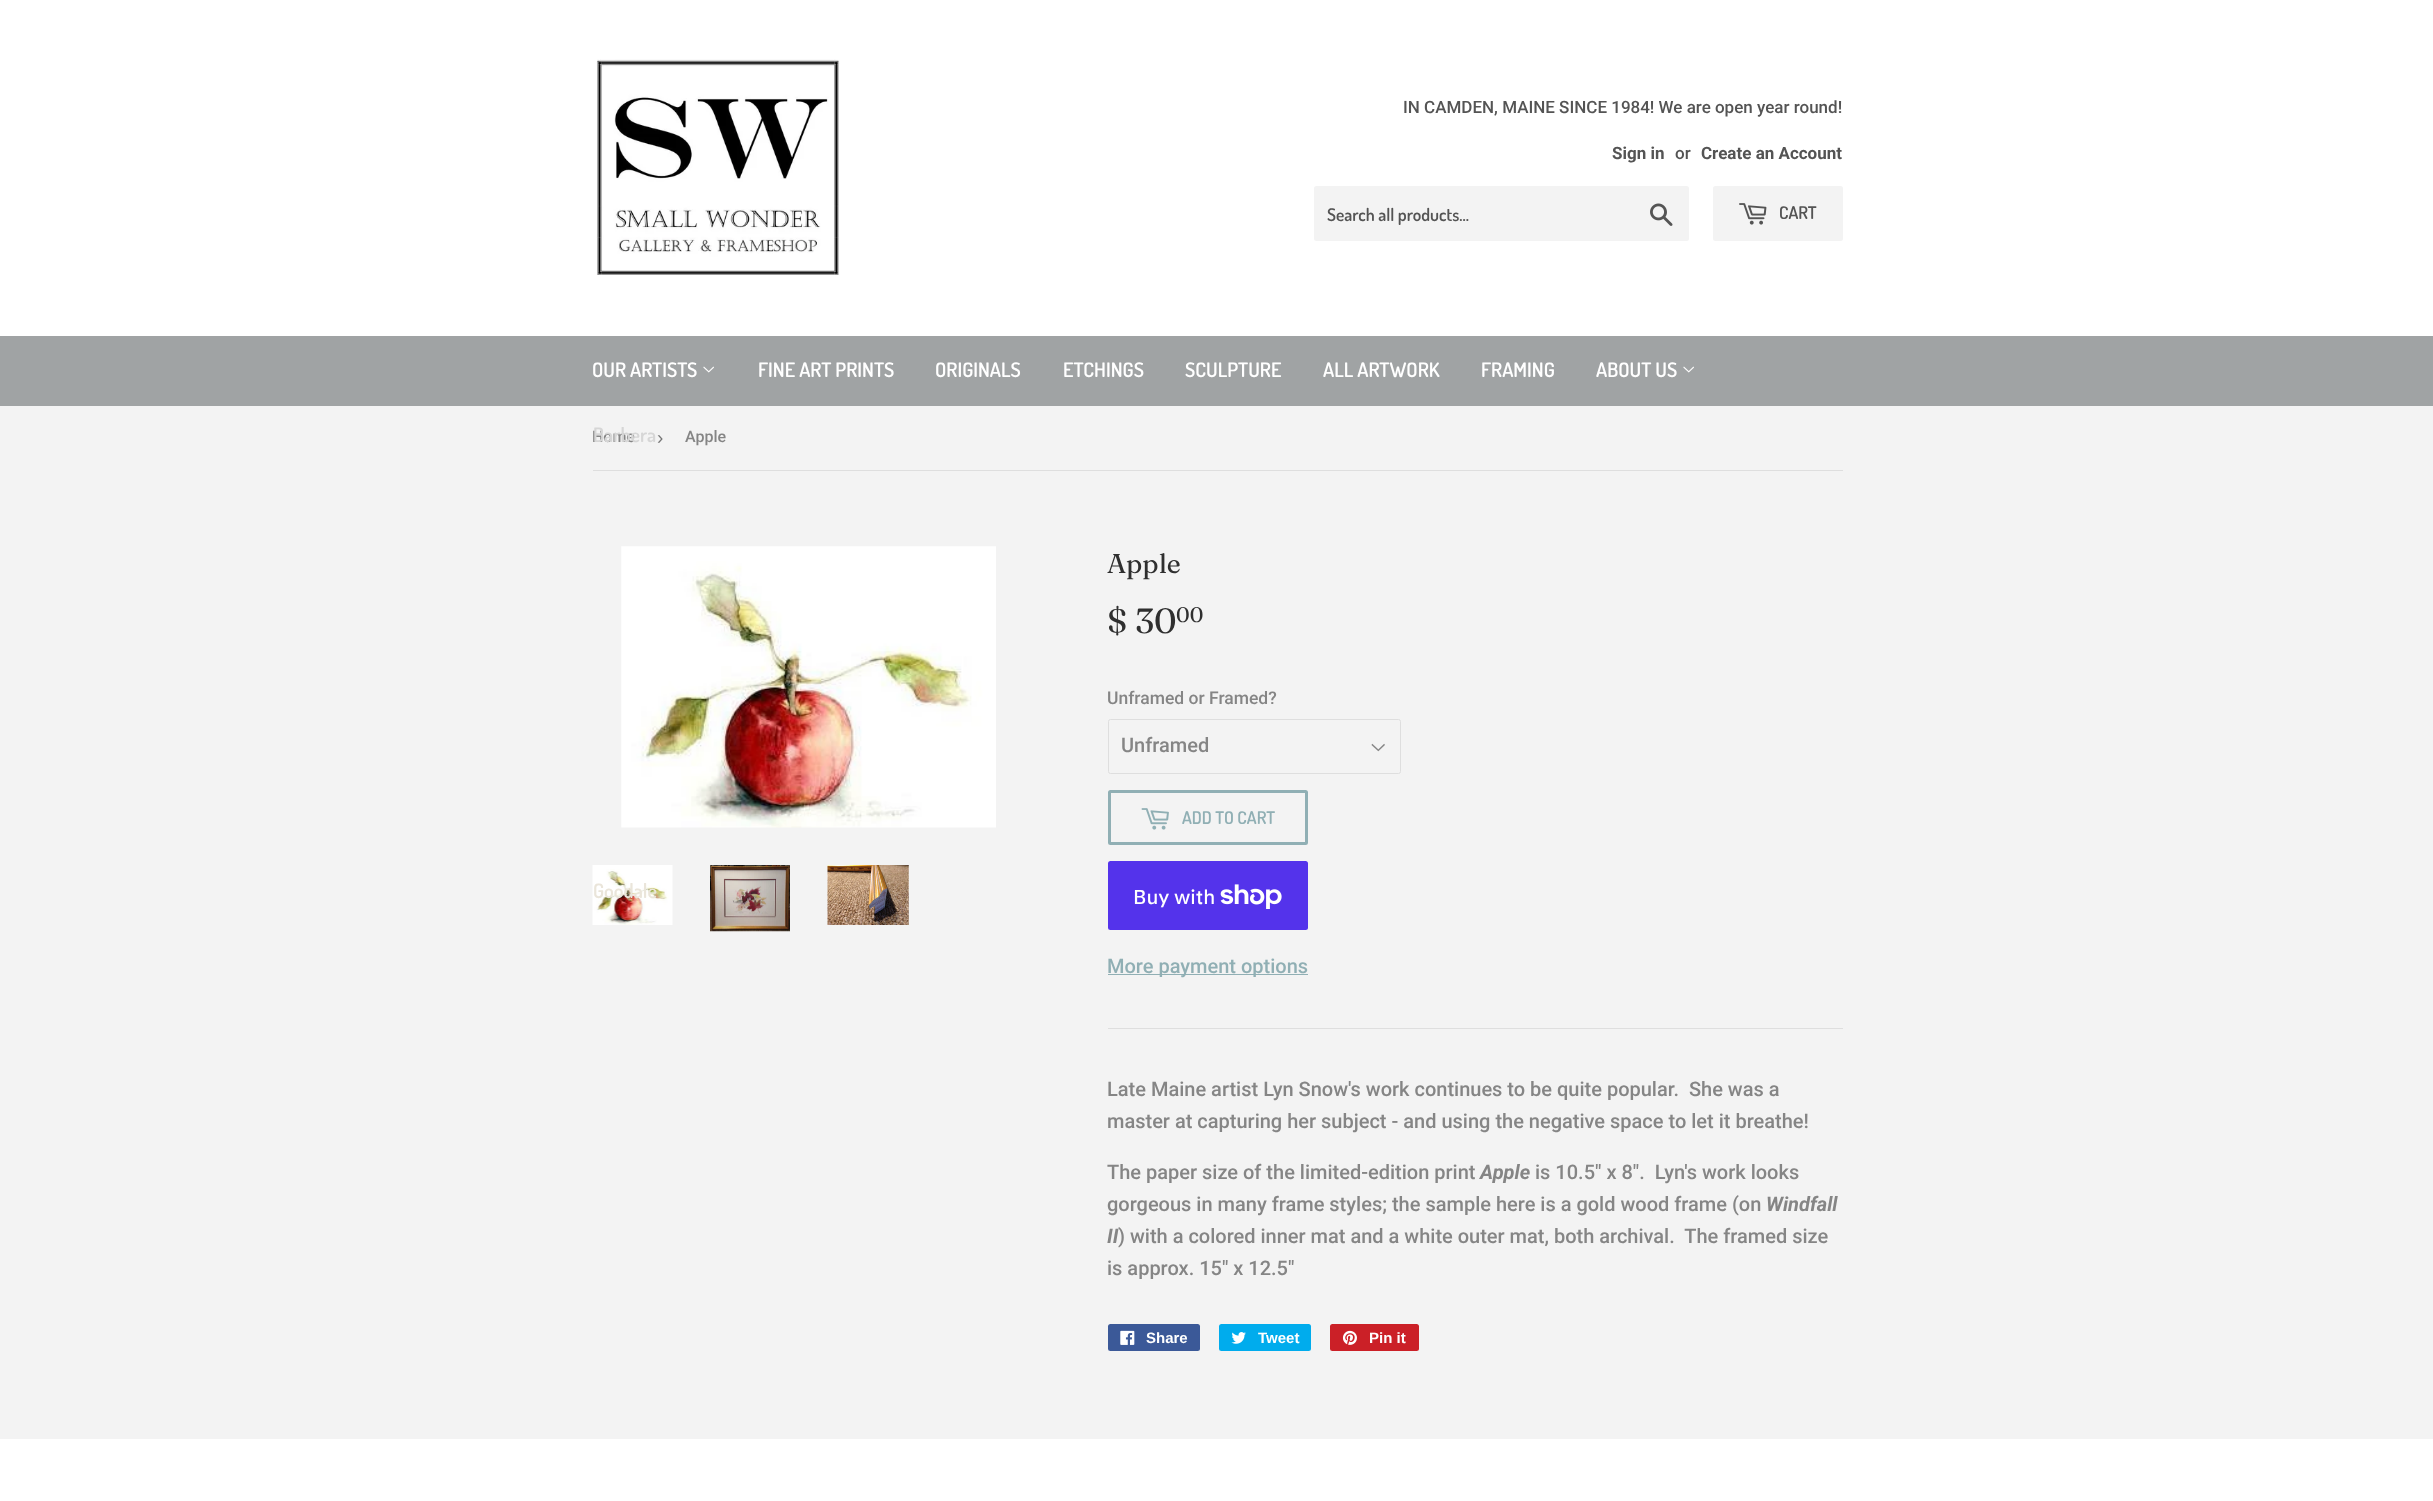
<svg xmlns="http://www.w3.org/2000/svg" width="2433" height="1501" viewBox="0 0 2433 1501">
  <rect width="100%" height="100%" fill="#f3f3f3"/>
  <rect x="0" y="0" width="2433" height="336" fill="#ffffff"/>
  <image x="596" y="59" width="244" height="216" href="img1.png"/>
  <text x="1403" y="113" font-family="Roboto" font-size="17" font-weight="500" fill="#545454">IN CAMDEN, MAINE SINCE 1984! We are open year round!</text>
  <text x="1612" y="159" font-family="Roboto" font-size="17" font-weight="bold" fill="#545454">Sign in</text>
  <text x="1675" y="159" font-family="Roboto" font-size="17" font-weight="500" fill="#545454">or</text>
  <text x="1701" y="159" font-family="Roboto" font-size="17" font-weight="bold" fill="#545454">Create an Account</text>
  <rect x="1314" y="186" width="375" height="55" rx="2.5" fill="#f3f3f3"/>
  <text x="1327" y="221" font-family="Dosis" font-size="17.5" font-weight="600" fill="#545454">Search all products...</text>
  <image x="1650" y="203" width="23" height="23" href="img2.png"/>
  <rect x="1713" y="186" width="130" height="55" rx="2.5" fill="#f3f3f3"/>
  <image x="1739" y="203" width="28" height="22" href="img3.png"/>
  <text x="1779" y="219" font-family="Dosis" font-size="17.5" font-weight="600" fill="#545454">CART</text>
  <rect x="0" y="336" width="2433" height="70" fill="#a0a3a4"/>
  <text x="592" y="377" font-family="Dosis" font-size="20" font-weight="600" fill="#ffffff">OUR ARTISTS</text>
  <image x="703" y="366" width="11" height="7" href="img4.png"/>
  <text x="592" y="442" font-family="Roboto" font-size="16" font-weight="500" fill="#858585">Home</text>
  <text x="593" y="442" font-family="Dosis" font-size="20" font-weight="600" fill="#d6d6d6">Barbera</text>
  <image x="592" y="865" width="81" height="60" href="img6.png"/>
  <text x="593" y="898" font-family="Dosis" font-size="20" font-weight="600" fill="#eae5da">Goodale</text>
  <text x="758" y="377" font-family="Dosis" font-size="20" font-weight="600" fill="#ffffff">FINE ART PRINTS</text>
  <text x="935" y="377" font-family="Dosis" font-size="20" font-weight="600" fill="#ffffff">ORIGINALS</text>
  <text x="1063" y="377" font-family="Dosis" font-size="20" font-weight="600" fill="#ffffff">ETCHINGS</text>
  <text x="1185" y="377" font-family="Dosis" font-size="20" font-weight="600" fill="#ffffff">SCULPTURE</text>
  <text x="1323" y="377" font-family="Dosis" font-size="20" font-weight="600" fill="#ffffff">ALL ARTWORK</text>
  <text x="1481" y="377" font-family="Dosis" font-size="20" font-weight="600" fill="#ffffff">FRAMING</text>
  <text x="1596" y="377" font-family="Dosis" font-size="20" font-weight="600" fill="#ffffff">ABOUT US</text>
  <image x="1683" y="366" width="11" height="7" href="img4.png"/>
  <rect x="593" y="470" width="1250" height="1" fill="#dedede"/>
  <text x="657" y="444" font-family="Liberation Sans" font-size="19" fill="#767676">›</text>
  <text x="685" y="442" font-family="Roboto" font-size="16" font-weight="500" fill="#858585">Apple</text>
  <image x="621" y="546" width="375" height="282" href="img5.png"/>
  <image x="710" y="865" width="80" height="67" href="img7.png"/>
  <image x="827" y="865" width="82" height="60" href="img8.png"/>
  <text x="1107" y="573" font-family="Fraunces" font-size="27" fill="#2f2f2f">Apple</text>
  <text x="1107" y="633" font-family="'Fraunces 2'" font-size="35" fill="#2f2f2f">$ 30</text>
  <text x="1176" y="622" font-family="'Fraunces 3'" font-size="21" fill="#2f2f2f">00</text>
  <text x="1107" y="704" font-family="Roboto" font-size="17.5" font-weight="500" fill="#858585">Unframed or Framed?</text>
  <image x="1371" y="743" width="14" height="9" href="img9.png"/>
  <rect x="1108.5" y="719.5" width="292" height="54" rx="2" fill="none" stroke="#dedede"/>
  <text x="1121" y="752" font-family="Roboto" font-size="20" font-weight="500" fill="#858585">Unframed</text>
  <rect x="1109.5" y="791.5" width="197" height="52" rx="1" fill="none" stroke="#90afb4" stroke-width="3"/>
  <image x="1141" y="808" width="28" height="22" href="img10.png"/>
  <text x="1182" y="824" font-family="Dosis" font-size="17.5" font-weight="600" fill="#90afb4">ADD TO CART</text>
  <rect x="1108" y="861" width="200" height="69" rx="2.5" fill="#5433eb"/>
  <text x="1133" y="904" font-family="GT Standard" font-size="20" font-weight="500" fill="#ffffff">Buy with</text>
  <image x="1220" y="884" width="62" height="25" href="img11.png"/>
  <rect x="1108" y="974" width="200" height="1" fill="#90afb4"/>
  <text x="1107" y="973" font-family="Roboto" font-size="20" font-weight="500" fill="#90afb4">More payment options</text>
  <rect x="1108" y="1028" width="735" height="1" fill="#dedede"/>
  <text x="1107" y="1096" font-family="Roboto" font-size="20" font-weight="500" fill="#858585" xml:space="preserve">Late Maine artist Lyn Snow's work continues to be quite popular.  She was a</text>
  <text x="1107" y="1128" font-family="Roboto" font-size="20" font-weight="500" fill="#858585">master at capturing her subject - and using the negative space to let it breathe!</text>
  <text x="1107" y="1179" font-family="Roboto" font-size="20" font-weight="500" fill="#858585">The paper size of the limited-edition print</text>
  <text x="1480" y="1179" font-family="Roboto" font-size="20" font-weight="bold" font-style="italic" fill="#858585">Apple</text>
  <text x="1535" y="1179" font-family="Roboto" font-size="20" font-weight="500" fill="#858585" xml:space="preserve">is 10.5" x 8".  Lyn's work looks</text>
  <text x="1107" y="1211" font-family="Roboto" font-size="20" font-weight="500" fill="#858585">gorgeous in many frame styles; the sample here is a gold wood frame (on</text>
  <text x="1766" y="1211" font-family="Roboto" font-size="20" font-weight="bold" font-style="italic" fill="#858585">Windfall</text>
  <text x="1107" y="1243" font-family="Roboto" font-size="20" font-weight="bold" font-style="italic" fill="#858585">II</text>
  <text x="1118" y="1243" font-family="Roboto" font-size="20" font-weight="500" fill="#858585" xml:space="preserve">) with a colored inner mat and a white outer mat, both archival.  The framed size</text>
  <text x="1107" y="1275" font-family="Roboto" font-size="20" font-weight="500" fill="#858585">is approx. 15" x 12.5"</text>
  <rect x="1108" y="1324" width="92" height="27" rx="2.5" fill="#3b5998"/>
  <image x="1120" y="1330" width="15" height="15" href="img12.png"/>
  <text x="1146" y="1343" font-family="Liberation Sans" font-size="15" font-weight="bold" fill="#ffffff">Share</text>
  <rect x="1219" y="1324" width="92" height="27" rx="2.5" fill="#00aced"/>
  <image x="1231" y="1332" width="15" height="12" href="img13.png"/>
  <text x="1258" y="1343" font-family="Liberation Sans" font-size="15" font-weight="bold" fill="#ffffff">Tweet</text>
  <rect x="1330" y="1324" width="89" height="27" rx="2.5" fill="#cb2027"/>
  <image x="1342" y="1330" width="15" height="15" href="img14.png"/>
  <text x="1369" y="1343" font-family="Liberation Sans" font-size="15" font-weight="bold" fill="#ffffff">Pin it</text>
  <rect x="0" y="1439" width="2433" height="62" fill="#ffffff"/>
</svg>
